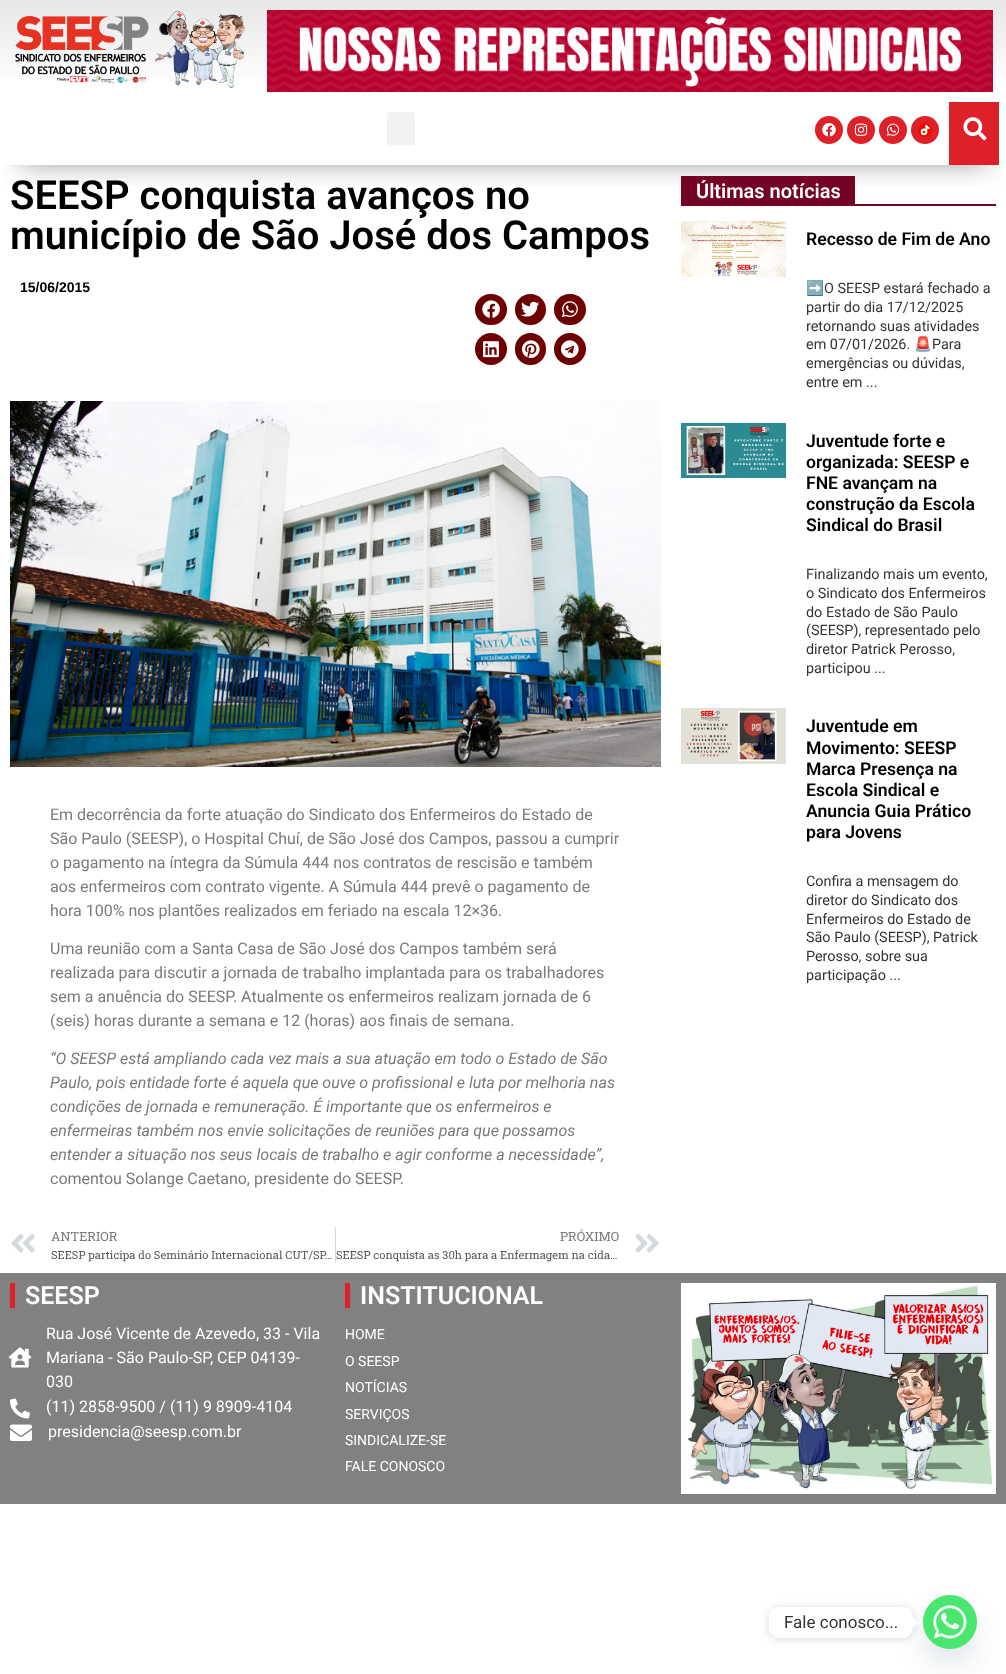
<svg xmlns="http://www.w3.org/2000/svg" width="1006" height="1674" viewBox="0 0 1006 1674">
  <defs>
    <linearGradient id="g1" gradientUnits="userSpaceOnUse" x1="503" y1="0" x2="503" y2="102"><stop offset="0" stop-color="#e7e7e7"/><stop offset="0.87" stop-color="#ffffff"/></linearGradient>
    <clipPath id="clip1"><rect x="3" y="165" width="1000" height="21"/></clipPath>
    <filter id="blur1" x="-50%" y="-200%" width="200%" height="500%"><feGaussianBlur stdDeviation="14.5"/></filter>
    <linearGradient id="g2" gradientUnits="userSpaceOnUse" x1="475" y1="310" x2="507" y2="310"><stop offset="0" stop-color="#000000" stop-opacity="0.12"/><stop offset="1" stop-color="#000000" stop-opacity="0"/></linearGradient>
    <linearGradient id="g3" gradientUnits="userSpaceOnUse" x1="515" y1="310" x2="546" y2="310"><stop offset="0" stop-color="#000000" stop-opacity="0.12"/><stop offset="1" stop-color="#000000" stop-opacity="0"/></linearGradient>
    <linearGradient id="g4" gradientUnits="userSpaceOnUse" x1="554" y1="310" x2="586" y2="310"><stop offset="0" stop-color="#000000" stop-opacity="0.12"/><stop offset="1" stop-color="#000000" stop-opacity="0"/></linearGradient>
    <linearGradient id="g5" gradientUnits="userSpaceOnUse" x1="475" y1="349" x2="507" y2="349"><stop offset="0" stop-color="#000000" stop-opacity="0.12"/><stop offset="1" stop-color="#000000" stop-opacity="0"/></linearGradient>
    <linearGradient id="g6" gradientUnits="userSpaceOnUse" x1="515" y1="349" x2="546" y2="349"><stop offset="0" stop-color="#000000" stop-opacity="0.12"/><stop offset="1" stop-color="#000000" stop-opacity="0"/></linearGradient>
    <linearGradient id="g7" gradientUnits="userSpaceOnUse" x1="554" y1="349" x2="586" y2="349"><stop offset="0" stop-color="#000000" stop-opacity="0.12"/><stop offset="1" stop-color="#000000" stop-opacity="0"/></linearGradient>
    <filter id="blur2" x="-50%" y="-200%" width="200%" height="500%"><feGaussianBlur stdDeviation="12"/></filter>
    <filter id="blur3" x="-50%" y="-200%" width="200%" height="500%"><feGaussianBlur stdDeviation="4"/></filter>
  </defs>
  <rect width="100%" height="100%" fill="#ffffff"/>
  <rect x="0" y="0" width="1006" height="79" fill="url(#g1)"/>
  <image x="15" y="10" width="230" height="78" href="img1.png"/>
  <image x="267" y="10" width="726" height="82" href="img2.png"/>
  <g clip-path="url(#clip1)">
    <rect x="20" y="138" width="966" height="23" fill="#000000" fill-opacity="0.5" filter="url(#blur1)"/>
  </g>
  <rect x="387" y="112" width="28" height="33" rx="3" fill="#f2f2f2"/>
  <circle cx="829" cy="130" r="14" fill="#de2128"/>
  <image x="822" y="123" width="14" height="14" href="img3.png"/>
  <circle cx="861" cy="130" r="14" fill="#de2128"/>
  <image x="854" y="123" width="14" height="13" href="img4.png"/>
  <circle cx="893" cy="130" r="14" fill="#de2128"/>
  <image x="886" y="123" width="14" height="13" href="img5.png"/>
  <circle cx="925" cy="130" r="14" fill="#de2128"/>
  <image x="918" y="123" width="14" height="14" href="img6.png"/>
  <rect x="949" y="102" width="50" height="63" fill="#de2128"/>
  <image x="963" y="117" width="24" height="24" href="img7.png"/>
  <text x="10" y="209" font-family="Roboto" font-size="40" font-weight="600" fill="#000000">SEESP conquista avanços no</text>
  <text x="10" y="249" font-family="Roboto" font-size="40" font-weight="600" fill="#000000">município de São José dos Campos</text>
  <text x="20" y="292" font-family="Liberation Sans" font-size="14" font-weight="bold" fill="#000000">15/06/2015</text>
  <rect x="475" y="294" width="32" height="31" rx="15.5" fill="#740000"/>
  <rect x="475" y="294" width="32" height="31" rx="15.5" fill="url(#g2)"/>
  <image x="482" y="300" width="18" height="18" href="img8.png"/>
  <circle cx="530.5" cy="309.5" r="15.5" fill="#740000"/>
  <circle cx="530.5" cy="309.5" r="15.5" fill="url(#g3)"/>
  <image x="521" y="301" width="18" height="16" href="img9.png"/>
  <rect x="554" y="294" width="32" height="31" rx="15.5" fill="#740000"/>
  <rect x="554" y="294" width="32" height="31" rx="15.5" fill="url(#g4)"/>
  <image x="562" y="301" width="16" height="17" href="img10.png"/>
  <circle cx="491" cy="349" r="16" fill="#740000"/>
  <circle cx="491" cy="349" r="16" fill="url(#g5)"/>
  <image x="483" y="341" width="16" height="17" href="img11.png"/>
  <rect x="515" y="333" width="31" height="32" rx="15.5" fill="#740000"/>
  <rect x="515" y="333" width="31" height="32" rx="15.5" fill="url(#g6)"/>
  <image x="522" y="340" width="18" height="18" href="img12.png"/>
  <circle cx="570" cy="349" r="16" fill="#740000"/>
  <circle cx="570" cy="349" r="16" fill="url(#g7)"/>
  <image x="561" y="340" width="18" height="18" href="img13.png"/>
  <image x="10" y="401" width="651" height="366" href="img14.png"/>
  <text x="50" y="820" font-family="Roboto" font-size="16" fill="#7a7a7a">Em decorrência da forte atuação do Sindicato dos Enfermeiros do Estado de</text>
  <text x="50" y="844" font-family="Roboto" font-size="16" fill="#7a7a7a">São Paulo (SEESP), o Hospital Chuí, de São José dos Campos, passou a cumprir</text>
  <text x="50" y="868" font-family="Roboto" font-size="16" fill="#7a7a7a">o pagamento na íntegra da Súmula 444 nos contratos de rescisão e também</text>
  <text x="50" y="892" font-family="Roboto" font-size="16" fill="#7a7a7a">aos enfermeiros com contrato vigente. A Súmula 444 prevê o pagamento de</text>
  <text x="50" y="916" font-family="Roboto" font-size="16" fill="#7a7a7a">hora 100% nos plantões realizados em feriado na escala 12×36.</text>
  <text x="50" y="954" font-family="Roboto" font-size="16" fill="#7a7a7a">Uma reunião com a Santa Casa de São José dos Campos também será</text>
  <text x="50" y="978" font-family="Roboto" font-size="16" fill="#7a7a7a">realizada para discutir a jornada de trabalho implantada para os trabalhadores</text>
  <text x="50" y="1002" font-family="Roboto" font-size="16" fill="#7a7a7a">sem a anuência do SEESP. Atualmente os enfermeiros realizam jornada de 6</text>
  <text x="50" y="1026" font-family="Roboto" font-size="16" fill="#7a7a7a">(seis) horas durante a semana e 12 (horas) aos finais de semana.</text>
  <text x="50" y="1064" font-family="Roboto" font-size="16" font-style="italic" fill="#7a7a7a">“O SEESP está ampliando cada vez mais a sua atuação em todo o Estado de São</text>
  <text x="50" y="1088" font-family="Roboto" font-size="16" font-style="italic" fill="#7a7a7a">Paulo, pois entidade forte é aquela que ouve o profissional e luta por melhoria nas</text>
  <text x="50" y="1112" font-family="Roboto" font-size="16" font-style="italic" fill="#7a7a7a">condições de jornada e remuneração. É importante que os enfermeiros e</text>
  <text x="50" y="1136" font-family="Roboto" font-size="16" font-style="italic" fill="#7a7a7a">enfermeiras também nos envie solicitações de reuniões para que possamos</text>
  <text x="50" y="1160" font-family="Roboto" font-size="16" font-style="italic" fill="#7a7a7a">entender a situação nos seus locais de trabalho e agir conforme a necessidade”,</text>
  <text x="50" y="1184" font-family="Roboto" font-size="16" fill="#7a7a7a">comentou Solange Caetano, presidente do SEESP.</text>
  <image x="11" y="1234" width="24" height="19" href="img15.png"/>
  <text x="51" y="1241" font-family="Roboto Slab" font-size="12.75" fill="#7a7a7a">ANTERIOR</text>
  <text x="51" y="1259" font-family="Roboto Slab" font-size="11.2" fill="#54595f">SEESP participa do Seminário Internacional CUT/SP…</text>
  <rect x="335" y="1227" width="1" height="36" fill="#d5d8dc"/>
  <text x="560" y="1241" font-family="Roboto Slab" font-size="12.75" fill="#7a7a7a">PRÓXIMO</text>
  <text x="336" y="1259" font-family="Roboto Slab" font-size="11.2" fill="#54595f">SEESP conquista as 30h para a Enfermagem na cida…</text>
  <image x="635" y="1234" width="24" height="19" href="img16.png"/>
  <rect x="681" y="176" width="174" height="30" fill="#740423"/>
  <text x="696" y="198" font-family="Roboto" font-size="20" font-weight="600" fill="#ffffff">Últimas notícias</text>
  <rect x="855" y="204" width="141" height="2" fill="#740423"/>
  <image x="681" y="221" width="105" height="56" href="img17.png"/>
  <text x="806" y="245" font-family="Roboto" font-size="17.6" font-weight="600" fill="#000000">Recesso de Fim de Ano</text>
  <text x="806" y="293" font-family="Noto Color Emoji" font-size="14.4" fill="#333333">➡️</text>
  <text x="824" y="293" font-family="Roboto" font-size="14.4" fill="#333333">O SEESP estará fechado a</text>
  <text x="806" y="312" font-family="Roboto" font-size="14.4" fill="#333333">partir do dia 17/12/2025</text>
  <text x="806" y="331" font-family="Roboto" font-size="14.4" fill="#333333">retornando suas atividades</text>
  <text x="806" y="349" font-family="Roboto" font-size="14.4" fill="#333333">em 07/01/2026.</text>
  <text x="914" y="349" font-family="Noto Color Emoji" font-size="14.4" fill="#333333">🚨</text>
  <text x="932" y="349" font-family="Roboto" font-size="14.4" fill="#333333">Para</text>
  <text x="806" y="368" font-family="Roboto" font-size="14.4" fill="#333333">emergências ou dúvidas,</text>
  <text x="806" y="387" font-family="Roboto" font-size="14.4" fill="#333333">entre em ...</text>
  <image x="681" y="423" width="105" height="55" href="img18.png"/>
  <text x="806" y="447" font-family="Roboto" font-size="17.6" font-weight="600" fill="#000000">Juventude forte e</text>
  <text x="806" y="468" font-family="Roboto" font-size="17.6" font-weight="600" fill="#000000">organizada: SEESP e</text>
  <text x="806" y="489" font-family="Roboto" font-size="17.6" font-weight="600" fill="#000000">FNE avançam na</text>
  <text x="806" y="510" font-family="Roboto" font-size="17.6" font-weight="600" fill="#000000">construção da Escola</text>
  <text x="806" y="531" font-family="Roboto" font-size="17.6" font-weight="600" fill="#000000">Sindical do Brasil</text>
  <text x="806" y="579" font-family="Roboto" font-size="14.4" fill="#333333">Finalizando mais um evento,</text>
  <text x="806" y="598" font-family="Roboto" font-size="14.4" fill="#333333">o Sindicato dos Enfermeiros</text>
  <text x="806" y="617" font-family="Roboto" font-size="14.4" fill="#333333">do Estado de São Paulo</text>
  <text x="806" y="635" font-family="Roboto" font-size="14.4" fill="#333333">(SEESP), representado pelo</text>
  <text x="806" y="654" font-family="Roboto" font-size="14.4" fill="#333333">diretor Patrick Perosso,</text>
  <text x="806" y="673" font-family="Roboto" font-size="14.4" fill="#333333">participou ...</text>
  <image x="681" y="708" width="105" height="56" href="img19.png"/>
  <text x="806" y="732" font-family="Roboto" font-size="17.6" font-weight="600" fill="#000000">Juventude em</text>
  <text x="806" y="754" font-family="Roboto" font-size="17.6" font-weight="600" fill="#000000">Movimento: SEESP</text>
  <text x="806" y="775" font-family="Roboto" font-size="17.6" font-weight="600" fill="#000000">Marca Presença na</text>
  <text x="806" y="796" font-family="Roboto" font-size="17.6" font-weight="600" fill="#000000">Escola Sindical e</text>
  <text x="806" y="817" font-family="Roboto" font-size="17.6" font-weight="600" fill="#000000">Anuncia Guia Prático</text>
  <text x="806" y="838" font-family="Roboto" font-size="17.6" font-weight="600" fill="#000000">para Jovens</text>
  <text x="806" y="886" font-family="Roboto" font-size="14.4" fill="#333333">Confira a mensagem do</text>
  <text x="806" y="905" font-family="Roboto" font-size="14.4" fill="#333333">diretor do Sindicato dos</text>
  <text x="806" y="924" font-family="Roboto" font-size="14.4" fill="#333333">Enfermeiros do Estado de</text>
  <text x="806" y="942" font-family="Roboto" font-size="14.4" fill="#333333">São Paulo (SEESP), Patrick</text>
  <text x="806" y="961" font-family="Roboto" font-size="14.4" fill="#333333">Perosso, sobre sua</text>
  <text x="806" y="980" font-family="Roboto" font-size="14.4" fill="#333333">participação ...</text>
  <rect x="0" y="1273" width="1006" height="231" fill="#818181"/>
  <rect x="10" y="1283" width="5" height="25" fill="#de2128"/>
  <text x="25" y="1304" font-family="Roboto" font-size="25" font-weight="600" fill="#ffffff">SEESP</text>
  <image x="8" y="1347" width="24" height="21" href="img20.png"/>
  <text x="46" y="1339" font-family="Roboto" font-size="16" fill="#ffffff">Rua José Vicente de Azevedo, 33 - Vila</text>
  <text x="46" y="1363" font-family="Roboto" font-size="16" fill="#ffffff">Mariana - São Paulo-SP, CEP 04139-</text>
  <text x="46" y="1387" font-family="Roboto" font-size="16" fill="#ffffff">030</text>
  <image x="10" y="1398" width="20" height="21" href="img21.png"/>
  <text x="46" y="1412" font-family="Roboto" font-size="16" fill="#ffffff">(11) 2858-9500 / (11) 9 8909-4104</text>
  <image x="10" y="1424" width="22" height="17" href="img22.png"/>
  <text x="48" y="1437" font-family="Roboto" font-size="16" fill="#ffffff">presidencia@seesp.com.br</text>
  <rect x="345" y="1283" width="5" height="25" fill="#de2128"/>
  <text x="360" y="1304" font-family="Roboto" font-size="25" font-weight="600" fill="#ffffff">INSTITUCIONAL</text>
  <text x="345" y="1339" font-family="Roboto" font-size="14" fill="#ffffff">HOME</text>
  <text x="345" y="1366" font-family="Roboto" font-size="14" fill="#ffffff">O SEESP</text>
  <text x="345" y="1392" font-family="Roboto" font-size="14" fill="#ffffff">NOTÍCIAS</text>
  <text x="345" y="1419" font-family="Roboto" font-size="14" fill="#ffffff">SERVIÇOS</text>
  <text x="345" y="1445" font-family="Roboto" font-size="14" fill="#ffffff">SINDICALIZE-SE</text>
  <text x="345" y="1471" font-family="Roboto" font-size="14" fill="#ffffff">FALE CONOSCO</text>
  <image x="681" y="1283" width="315" height="211" href="img23.png"/>
  <rect x="923" y="1611" width="54" height="54" rx="27" fill="#49687e" fill-opacity="0.16" filter="url(#blur2)"/>
  <image x="923" y="1595" width="54" height="54" href="img24.png"/>
  <rect x="769" y="1608" width="144" height="31" rx="10" fill="#000000" fill-opacity="0.15" filter="url(#blur3)"/>
  <rect x="769" y="1607" width="144" height="31" rx="10" fill="#ffffff"/>
  <text x="784" y="1628" font-family="Roboto" font-size="17" fill="#333333">Fale conosco...</text>
  <path d="M913 1627.5V1617.5L918 1622.5Z" fill="#ffffff"/>
</svg>
